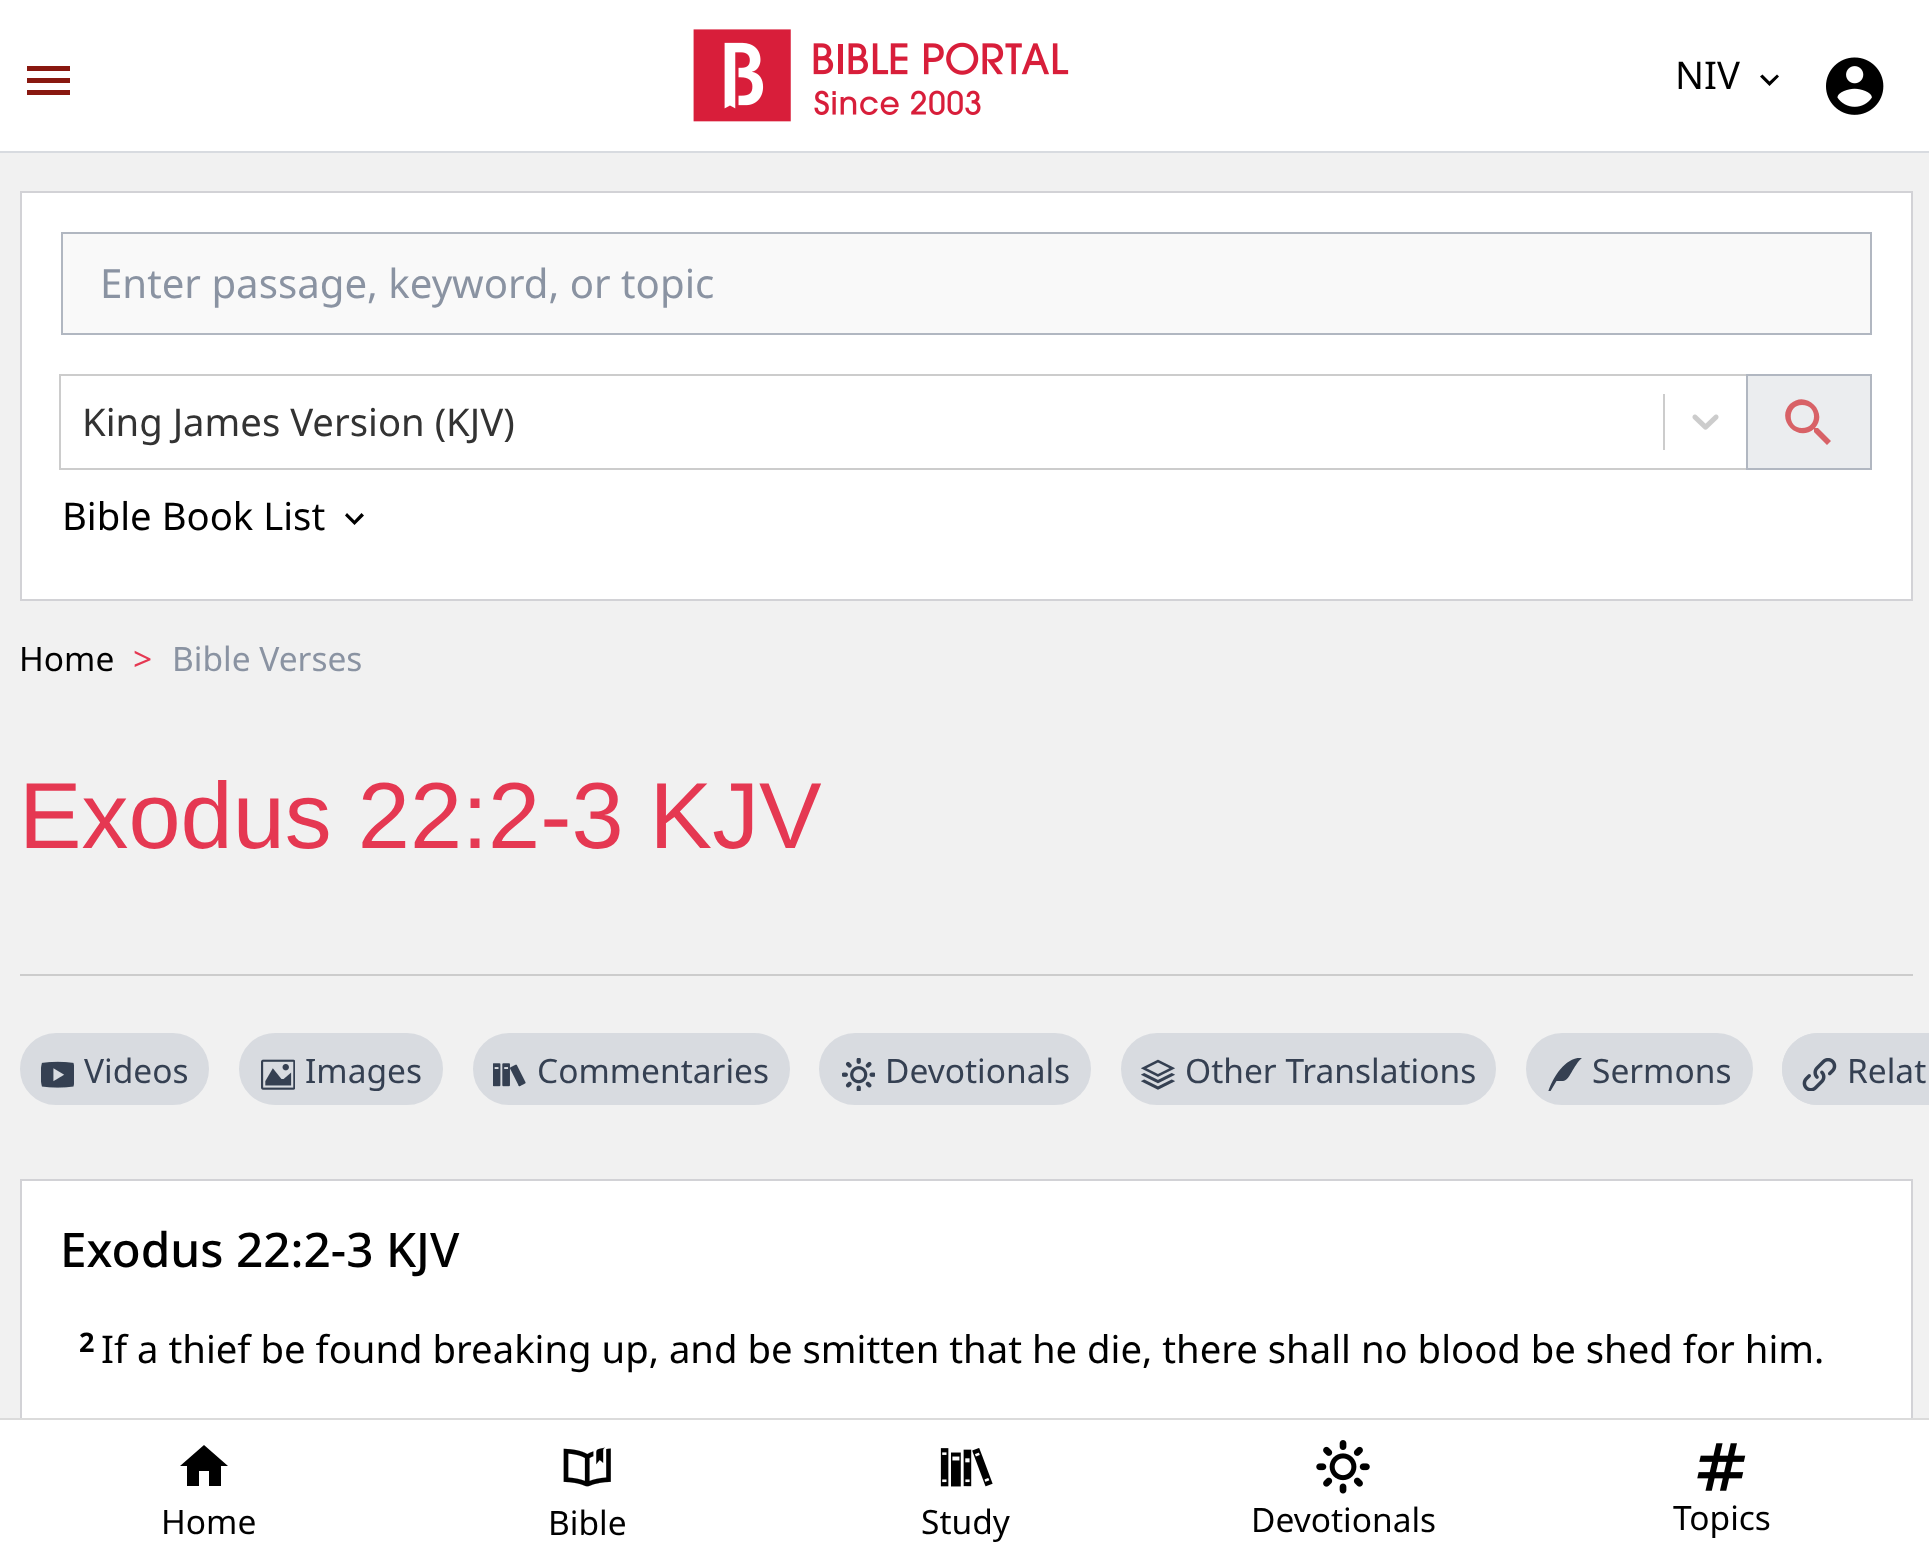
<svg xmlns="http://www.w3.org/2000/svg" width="1929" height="1564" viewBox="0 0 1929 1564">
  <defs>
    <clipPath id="clip1"><rect x="1548" y="1058" width="34" height="33"/></clipPath>
  </defs>
  <rect width="100%" height="100%" fill="#f1f1f1"/>
  <rect x="0" y="0" width="1929" height="151" fill="#ffffff"/>
  <rect x="0" y="151" width="1929" height="2" fill="#d8dbe0"/>
  <path d="M27 95H70V90H27ZM27 83H70V78H27ZM27 66V71H70V66Z" fill="#891810"/>
  <image x="693" y="29" width="376" height="93" href="img1.png"/>
  <text x="1675" y="89" font-family="Noto Sans" font-size="38.25" fill="#000000">NIV</text>
  <path d="M1762.5 74.5L1769.5 81.5L1777 74.5L1779 76.5L1769.5 86L1760 76.5Z" fill="#000000"/>
  <image x="1826" y="57" width="58" height="58" href="img2.png"/>
  <rect x="21" y="192" width="1891" height="408" fill="#ffffff" stroke="#d2d2d6" stroke-width="2"/>
  <rect x="62" y="233" width="1809" height="101" fill="#f9f9f9" stroke="#b1b7c1" stroke-width="2"/>
  <text x="100" y="298" font-family="Noto Sans" font-size="40.2" fill="#8a93a2">Enter passage, keyword, or topic</text>
  <rect x="60" y="375" width="1687" height="94" fill="none" stroke="#cccccc" stroke-width="2"/>
  <text x="82" y="436" font-family="Noto Sans" font-size="38.25" fill="#333333">King James Version (KJV)</text>
  <rect x="1663" y="394" width="2" height="56" fill="#cccccc"/>
  <image x="1692" y="414" width="27" height="16" href="img3.png"/>
  <rect x="1747" y="375" width="124" height="94" fill="#ebedef" stroke="#b1b7c1" stroke-width="2"/>
  <path d="M1818 428H1816H1815C1829 412 1806 389 1790 404C1775 420 1798 443 1814 429V430V432L1827 445L1831 441ZM1802 428C1787 428 1787 405 1802 405C1818 405 1818 428 1802 428Z" fill="#d86267"/>
  <text x="62" y="530" font-family="Noto Sans" font-size="38.25" fill="#000000">Bible Book List</text>
  <path d="M347 513L354.5 520.5L361.5 513L364 515.5L354.5 525L345 515.5Z" fill="#000000"/>
  <text x="19" y="671" font-family="Noto Sans" font-size="33.5" fill="#000000">Home</text>
  <text x="133" y="671" font-family="Noto Sans" font-size="33.5" fill="#e53852">&gt;</text>
  <text x="172" y="671" font-family="Noto Sans" font-size="33.5" fill="#8a93a2">Bible Verses</text>
  <rect x="20" y="974" width="1893" height="2" fill="#cccccc"/>
  <text x="19" y="848" font-family="Liberation Sans" font-size="93.75" fill="#e53852">Exodus 22:2-3 KJV</text>
  <rect x="21" y="1034" width="187" height="70" rx="35" fill="#d8dbe0" stroke="#d8dbe0" stroke-width="2"/>
  <image x="41" y="1061" width="33" height="27" href="img4.png"/>
  <text x="84" y="1083" font-family="Noto Sans" font-size="33.5" fill="#354052">Videos</text>
  <rect x="240" y="1034" width="202" height="70" rx="35" fill="#d8dbe0" stroke="#d8dbe0" stroke-width="2"/>
  <image x="261" y="1059" width="34" height="31" href="img5.png"/>
  <text x="305" y="1083" font-family="Noto Sans" font-size="33.5" fill="#354052">Images</text>
  <rect x="474" y="1034" width="315" height="70" rx="35" fill="#d8dbe0" stroke="#d8dbe0" stroke-width="2"/>
  <image x="493" y="1063" width="33" height="24" href="img6.png"/>
  <text x="537" y="1083" font-family="Noto Sans" font-size="33.5" fill="#354052">Commentaries</text>
  <rect x="820" y="1034" width="270" height="70" rx="35" fill="#d8dbe0" stroke="#d8dbe0" stroke-width="2"/>
  <image x="842" y="1058" width="33" height="33" href="img7.png"/>
  <text x="885" y="1083" font-family="Noto Sans" font-size="33.5" fill="#354052">Devotionals</text>
  <rect x="1122" y="1034" width="373" height="70" rx="35" fill="#d8dbe0" stroke="#d8dbe0" stroke-width="2"/>
  <image x="1141" y="1059" width="34" height="31" href="img8.png"/>
  <text x="1185" y="1083" font-family="Noto Sans" font-size="33.5" fill="#354052">Other Translations</text>
  <rect x="1527" y="1034" width="225" height="70" rx="35" fill="#d8dbe0" stroke="#d8dbe0" stroke-width="2"/>
  <g clip-path="url(#clip1)">
    <path d="M1548 1092C1552.5 1079 1563.5 1057.5 1582.5 1057.5C1573.5 1064.5 1569.5 1081 1563 1081H1556.5L1550 1092Z" fill="#354052"/>
  </g>
  <text x="1592" y="1083" font-family="Noto Sans" font-size="33.5" fill="#354052">Sermons</text>
  <path d="M1818 1033H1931V1105H1818C1798 1105 1782 1089 1782 1069C1782 1049 1798 1033 1818 1033Z" fill="#d8dbe0"/>
  <rect x="1783" y="1034" width="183" height="70" rx="35" fill="none" stroke="#d8dbe0" stroke-width="2"/>
  <image x="1802" y="1058" width="35" height="33" href="img9.png"/>
  <text x="1847" y="1083" font-family="Noto Sans" font-size="33.5" fill="#354052">Relat</text>
  <rect x="22" y="1181" width="1889" height="237" fill="#ffffff"/>
  <rect x="21" y="1180" width="1891" height="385" fill="none" stroke="#d2d2d6" stroke-width="2"/>
  <text x="60" y="1267" font-family="Noto Sans" font-size="47.75" font-weight="500" fill="#000000">Exodus 22:2-3 KJV</text>
  <text x="79" y="1352" font-family="Noto Sans" font-size="27" font-weight="bold" fill="#000000">2</text>
  <text x="101" y="1363" font-family="Noto Sans" font-size="38.25" fill="#000000">If a thief be found breaking up, and be smitten that he die, there shall no blood be shed for him.</text>
  <rect x="0" y="1420" width="1929" height="144" fill="#ffffff"/>
  <rect x="0" y="1418" width="1929" height="2" fill="#dbdbdb"/>
  <path d="M199 1486V1471H209V1486H221V1466H228L204 1445L180 1466H187V1486Z" fill="#000000"/>
  <text x="161" y="1534" font-family="Noto Sans" font-size="33.5" fill="#000000">Home</text>
  <image x="563" y="1447" width="48" height="40" href="img10.png"/>
  <text x="548" y="1535" font-family="Noto Sans" font-size="33.5" fill="#000000">Bible</text>
  <image x="940" y="1448" width="53" height="39" href="img11.png"/>
  <text x="921" y="1534" font-family="Noto Sans" font-size="33.5" fill="#000000">Study</text>
  <image x="1316" y="1440" width="54" height="54" href="img12.png"/>
  <text x="1251" y="1532" font-family="Noto Sans" font-size="33.5" fill="#000000">Devotionals</text>
  <image x="1697" y="1443" width="49" height="48" href="img13.png"/>
  <text x="1673" y="1530" font-family="Noto Sans" font-size="33.5" fill="#000000">Topics</text>
</svg>
